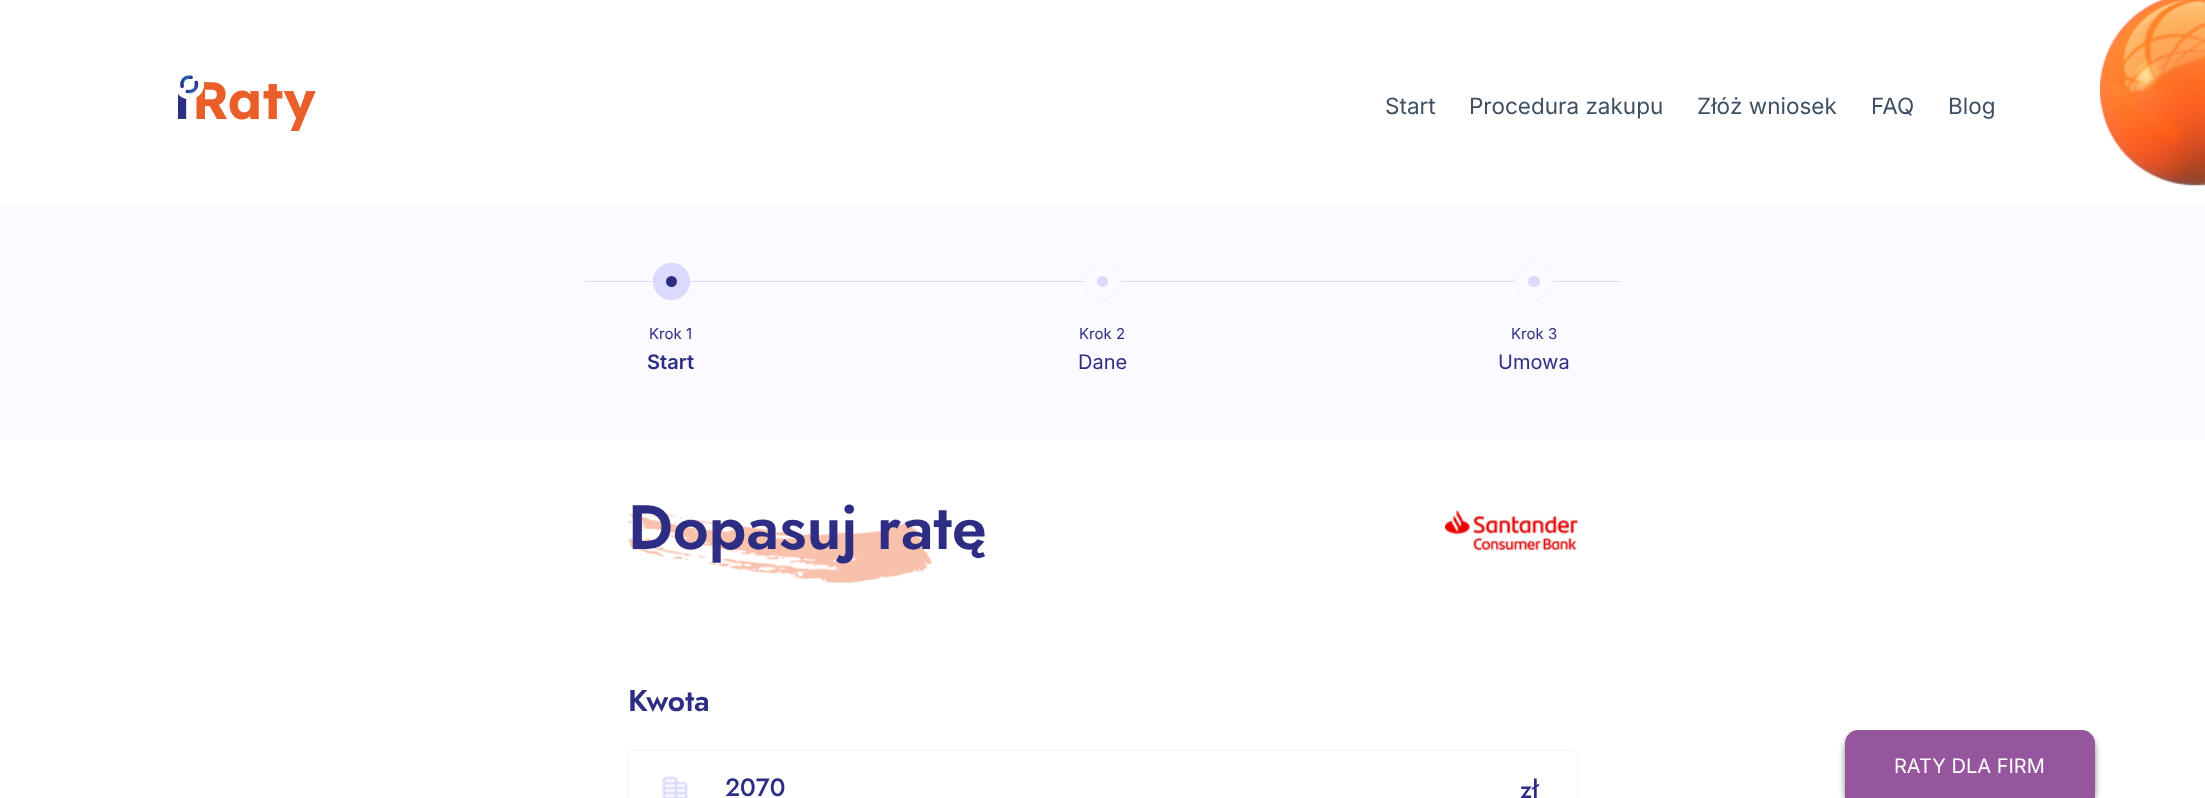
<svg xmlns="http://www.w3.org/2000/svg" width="2205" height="798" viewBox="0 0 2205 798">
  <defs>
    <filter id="blur1" x="-50%" y="-200%" width="200%" height="500%"><feGaussianBlur stdDeviation="0.5"/></filter>
    <filter id="blur2" x="-50%" y="-200%" width="200%" height="500%"><feGaussianBlur stdDeviation="3"/></filter>
  </defs>
  <rect width="100%" height="100%" fill="#ffffff"/>
  <image x="178" y="75" width="138" height="56" href="img1.png"/>
  <text x="1385" y="114" font-family="Inter" font-size="22.5" fill="#3e5061">Start</text>
  <text x="1469" y="114" font-family="Inter" font-size="22.5" fill="#3e5061">Procedura zakupu</text>
  <text x="1697" y="114" font-family="Inter" font-size="22.5" fill="#3e5061">Złóż wniosek</text>
  <text x="1871" y="114" font-family="Inter" font-size="22.5" fill="#3e5061">FAQ</text>
  <text x="1948" y="114" font-family="Inter" font-size="22.5" fill="#3e5061">Blog</text>
  <image x="2100" y="0" width="105" height="187" href="img2.png"/>
  <rect x="0" y="206" width="2205" height="234" fill="#fafaff"/>
  <rect x="585" y="281" width="1035" height="1" fill="#dadafe"/>
  <rect x="653" y="263" width="37" height="37" rx="18.5" fill="#dadafe" filter="url(#blur1)"/>
  <circle cx="671.5" cy="281.5" r="12" fill="#2d2e83" stroke="#dadafe" stroke-width="13"/>
  <text x="649" y="339" font-family="Inter" font-size="15" fill="#2d2e83">Krok 1</text>
  <text x="647" y="369" font-family="Inter" font-size="20" font-weight="600" fill="#2d2e83">Start</text>
  <rect x="1084" y="263" width="37" height="37" rx="18.5" fill="#dadafe" filter="url(#blur1)"/>
  <circle cx="1102.5" cy="281.5" r="12" fill="#dadafe" stroke="#fafaff" stroke-width="13"/>
  <text x="1079" y="339" font-family="Inter" font-size="15" fill="#2d2e83">Krok 2</text>
  <text x="1078" y="369" font-family="Inter" font-size="20" fill="#2d2e83">Dane</text>
  <rect x="1515" y="263" width="38" height="37" rx="18.5" fill="#dadafe" filter="url(#blur1)"/>
  <rect x="1521.5" y="269.5" width="25" height="24" rx="12" fill="#dadafe" stroke="#fafaff" stroke-width="13"/>
  <text x="1511" y="339" font-family="Inter" font-size="15" fill="#2d2e83">Krok 3</text>
  <text x="1498" y="369" font-family="Inter" font-size="20" fill="#2d2e83">Umowa</text>
  <image x="627" y="510" width="306" height="74" href="img3.png"/>
  <text x="628" y="549" font-family="Jost" font-size="62.5" font-weight="600" fill="#2d2e83">Dopasuj ratę</text>
  <image x="1445" y="510" width="133" height="40" href="img4.png"/>
  <text x="628" y="711" font-family="Jost" font-size="30" font-weight="600" fill="#2d2e83">Kwota</text>
  <rect x="628.5" y="750.5" width="949" height="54" rx="5.5" fill="none" stroke="#f3f3f3"/>
  <image x="662" y="776" width="26" height="22" href="img5.png"/>
  <text x="725" y="796" font-family="Jost" font-size="25" font-weight="500" fill="#2d2e83">2070</text>
  <text x="1520" y="798" font-family="Jost" font-size="25" font-weight="500" fill="#2d2e83">zł</text>
  <rect x="1845" y="736" width="250" height="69" rx="13" fill="#000000" fill-opacity="0.5" filter="url(#blur2)"/>
  <path d="M1858 730H2082C2089 730 2095 736 2095 743V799H1845V743C1845 736 1851 730 1858 730Z" fill="#95569e"/>
  <text x="1894" y="773" font-family="Inter" font-size="20" fill="#ffffff">RATY DLA FIRM</text>
</svg>
